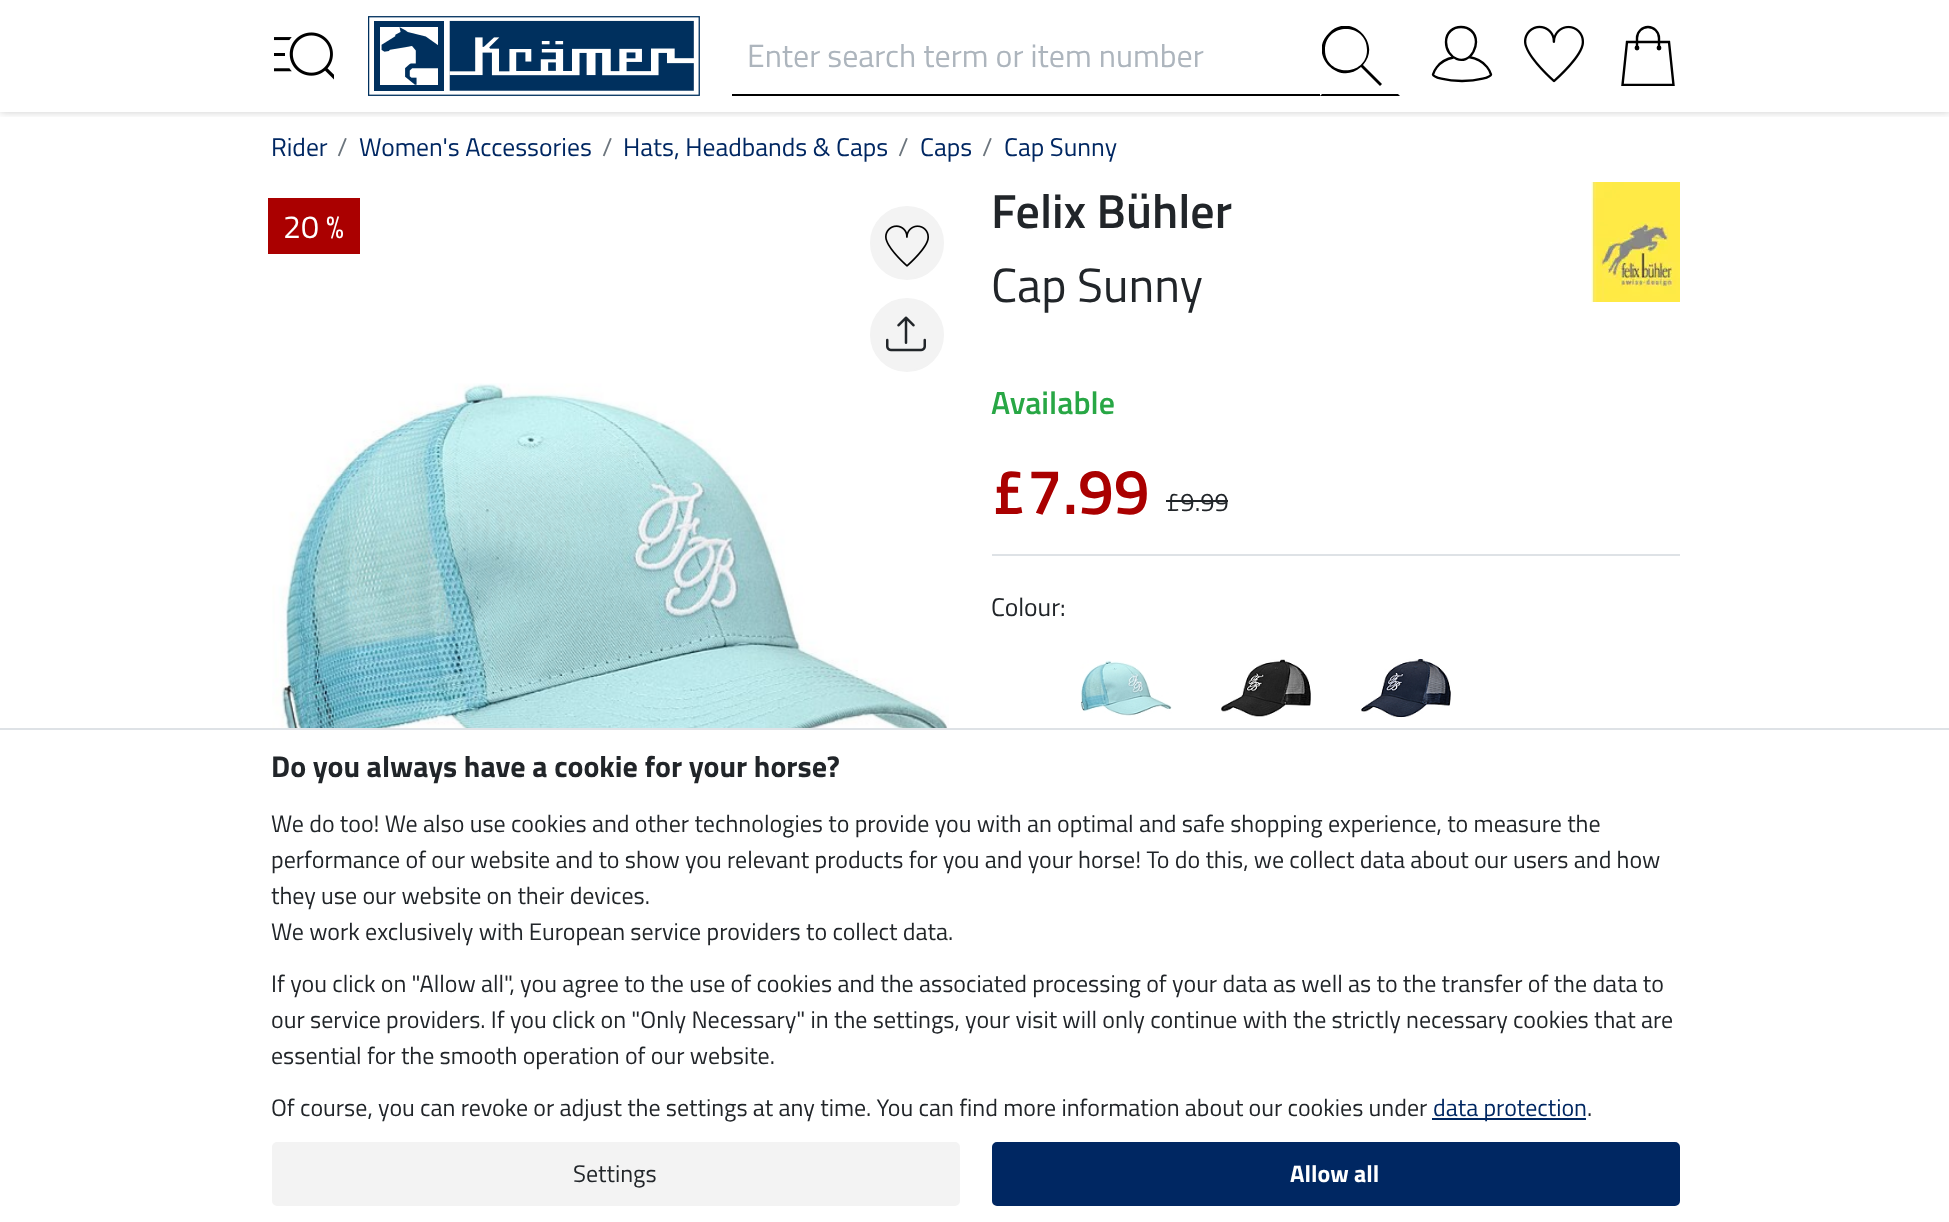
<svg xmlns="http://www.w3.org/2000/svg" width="1949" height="1222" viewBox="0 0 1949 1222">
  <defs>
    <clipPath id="clip1"><rect x="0" y="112" width="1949" height="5"/></clipPath>
    <filter id="blur1" x="-50%" y="-200%" width="200%" height="500%"><feGaussianBlur stdDeviation="4"/></filter>
    <clipPath id="clip2"><rect x="1322" y="26" width="60" height="60"/></clipPath>
    <clipPath id="clip3"><rect x="1618" y="26" width="60" height="60"/></clipPath>
  </defs>
  <rect width="100%" height="100%" fill="#ffffff"/>
  <g clip-path="url(#clip1)">
    <rect x="0" y="0" width="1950" height="112" fill="#000000" fill-opacity="0.2" filter="url(#blur1)"/>
  </g>
  <image x="274" y="32" width="60" height="48" href="img1.png"/>
  <image x="368" y="16" width="332" height="80" href="img2.png"/>
  <rect x="732" y="94" width="590" height="2" fill="#000000"/>
  <text x="747" y="67" font-family="Titillium Web" font-size="32" fill="#adb5bd">Enter search term or item number</text>
  <rect x="1320" y="94" width="2" height="2" fill="#ffffff"/>
  <path d="M1400 96H1320L1322 94H1398Z" fill="#000000"/>
  <g clip-path="url(#clip2)">
    <path d="M1367 50C1367 22 1325 22 1325 50C1325 77 1367 77 1367 50ZM1382 84L1380 86L1361 67C1339 87 1307 54 1329 33C1350 11 1383 43 1363 65Z" fill="#000000" fill-rule="evenodd"/>
  </g>
  <path d="M1476 42C1476 45.5 1475 48.5 1473.5 51.5C1465 67.5 1446 58.5 1446 42C1446 22 1476 22 1476 42ZM1453.5 57.5C1436.5 60.5 1433 74.5 1433 74.5C1433 77 1445.5 81 1462 81C1478.5 81 1491 77 1491 74.5C1491 74.5 1487.5 60 1469 57" fill="none" stroke="#000000" stroke-width="2.4" stroke-linejoin="round"/>
  <image x="1524" y="25" width="60" height="58" href="img3.png"/>
  <g clip-path="url(#clip3)">
    <path d="M1627 42L1622.5 85H1673.5L1669 42Z" fill="none" stroke="#000000" stroke-width="2.4" stroke-linecap="round"/>
  </g>
  <path d="M1659 48V38C1659 32 1654 27 1648 27C1642 27 1637 32 1637 38V48" fill="none" stroke="#000000" stroke-width="2.4" stroke-linecap="round"/>
  <circle cx="1637" cy="48" r="2.4" fill="#000000"/>
  <circle cx="1659" cy="48" r="2.4" fill="#000000"/>
  <text x="271" y="156" font-family="Titillium Web" font-size="25.6" fill="#002762">Rider</text>
  <text x="337" y="156" font-family="Titillium Web" font-size="25.6" fill="#6c757d">/</text>
  <text x="359" y="156" font-family="Titillium Web" font-size="25.6" fill="#002762">Women's Accessories</text>
  <text x="602" y="156" font-family="Titillium Web" font-size="25.6" fill="#6c757d">/</text>
  <text x="623" y="156" font-family="Titillium Web" font-size="25.6" fill="#002762">Hats, Headbands &amp; Caps</text>
  <text x="898" y="156" font-family="Titillium Web" font-size="25.6" fill="#6c757d">/</text>
  <text x="920" y="156" font-family="Titillium Web" font-size="25.6" fill="#002762">Caps</text>
  <text x="982" y="156" font-family="Titillium Web" font-size="25.6" fill="#6c757d">/</text>
  <text x="1004" y="156" font-family="Titillium Web" font-size="25.6" fill="#002762">Cap Sunny</text>
  <rect x="268" y="198" width="92" height="56" fill="#aa0000"/>
  <text x="283" y="238" font-family="Titillium Web" font-size="32" fill="#ffffff">20 %</text>
  <circle cx="907" cy="243" r="36" fill="#f3f3f3" stroke="#f3f3f3" stroke-width="2"/>
  <image x="885" y="225" width="44" height="42" href="img4.png"/>
  <circle cx="907" cy="335" r="36" fill="#f3f3f3" stroke="#f3f3f3" stroke-width="2"/>
  <image x="886" y="316" width="40" height="36" href="img5.png"/>
  <image x="272" y="383" width="677" height="345" href="img6.png"/>
  <text x="991" y="228" font-family="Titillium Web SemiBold" font-size="48" font-weight="600" fill="#212529">Felix Bühler</text>
  <text x="991" y="302" font-family="Titillium Web" font-size="48" fill="#212529">Cap Sunny</text>
  <image x="1591" y="182" width="89" height="120" href="img7.png"/>
  <text x="991" y="414" font-family="Titillium Web SemiBold" font-size="32" font-weight="600" fill="#28a745">Available</text>
  <text x="991" y="514" font-family="Titillium Web SemiBold" font-size="64" font-weight="600" fill="#aa0000">£7.99</text>
  <text x="1166" y="511" font-family="Titillium Web" font-size="25.6" fill="#212529">£9.99</text>
  <rect x="1166" y="500" width="62" height="2" fill="#212529"/>
  <rect x="992" y="554" width="688" height="2" fill="#dee2e6"/>
  <text x="991" y="616" font-family="Titillium Web" font-size="25.6" fill="#212529">Colour:</text>
  <image x="1080" y="660" width="92" height="56" href="img8.png"/>
  <image x="1221" y="659" width="90" height="58" href="img9.png"/>
  <image x="1361" y="658" width="90" height="60" href="img10.png"/>
  <rect x="0" y="728" width="1949" height="2" fill="#dee2e6"/>
  <text x="271" y="777" font-family="Titillium Web" font-size="30" font-weight="bold" fill="#212529">Do you always have a cookie for your horse?</text>
  <text x="271" y="832" font-family="Titillium Web" font-size="24" fill="#212529">We do too! We also use cookies and other technologies to provide you with an optimal and safe shopping experience, to measure the</text>
  <text x="271" y="868" font-family="Titillium Web" font-size="24" fill="#212529">performance of our website and to show you relevant products for you and your horse! To do this, we collect data about our users and how</text>
  <text x="271" y="904" font-family="Titillium Web" font-size="24" fill="#212529">they use our website on their devices.</text>
  <text x="271" y="940" font-family="Titillium Web" font-size="24" fill="#212529">We work exclusively with European service providers to collect data.</text>
  <text x="271" y="992" font-family="Titillium Web" font-size="24" fill="#212529">If you click on "Allow all", you agree to the use of cookies and the associated processing of your data as well as to the transfer of the data to</text>
  <text x="271" y="1028" font-family="Titillium Web" font-size="24" fill="#212529">our service providers. If you click on "Only Necessary" in the settings, your visit will only continue with the strictly necessary cookies that are</text>
  <text x="271" y="1064" font-family="Titillium Web" font-size="24" fill="#212529">essential for the smooth operation of our website.</text>
  <text x="271" y="1116" font-family="Titillium Web" font-size="24" fill="#212529">Of course, you can revoke or adjust the settings at any time. You can find more information about our cookies under</text>
  <rect x="1432" y="1118" width="154" height="2" fill="#002762"/>
  <text x="1433" y="1116" font-family="Titillium Web" font-size="24" fill="#002762">data protection</text>
  <text x="1587" y="1116" font-family="Titillium Web" font-size="24" fill="#212529">.</text>
  <rect x="273" y="1143" width="686" height="62" rx="4" fill="#f3f3f3" stroke="#f3f3f3" stroke-width="2"/>
  <text x="573" y="1182" font-family="Titillium Web" font-size="24" fill="#212529">Settings</text>
  <rect x="993" y="1143" width="686" height="62" rx="4" fill="#002762" stroke="#002762" stroke-width="2"/>
  <text x="1290" y="1182" font-family="Titillium Web" font-size="24" font-weight="bold" fill="#ffffff">Allow all</text>
</svg>
